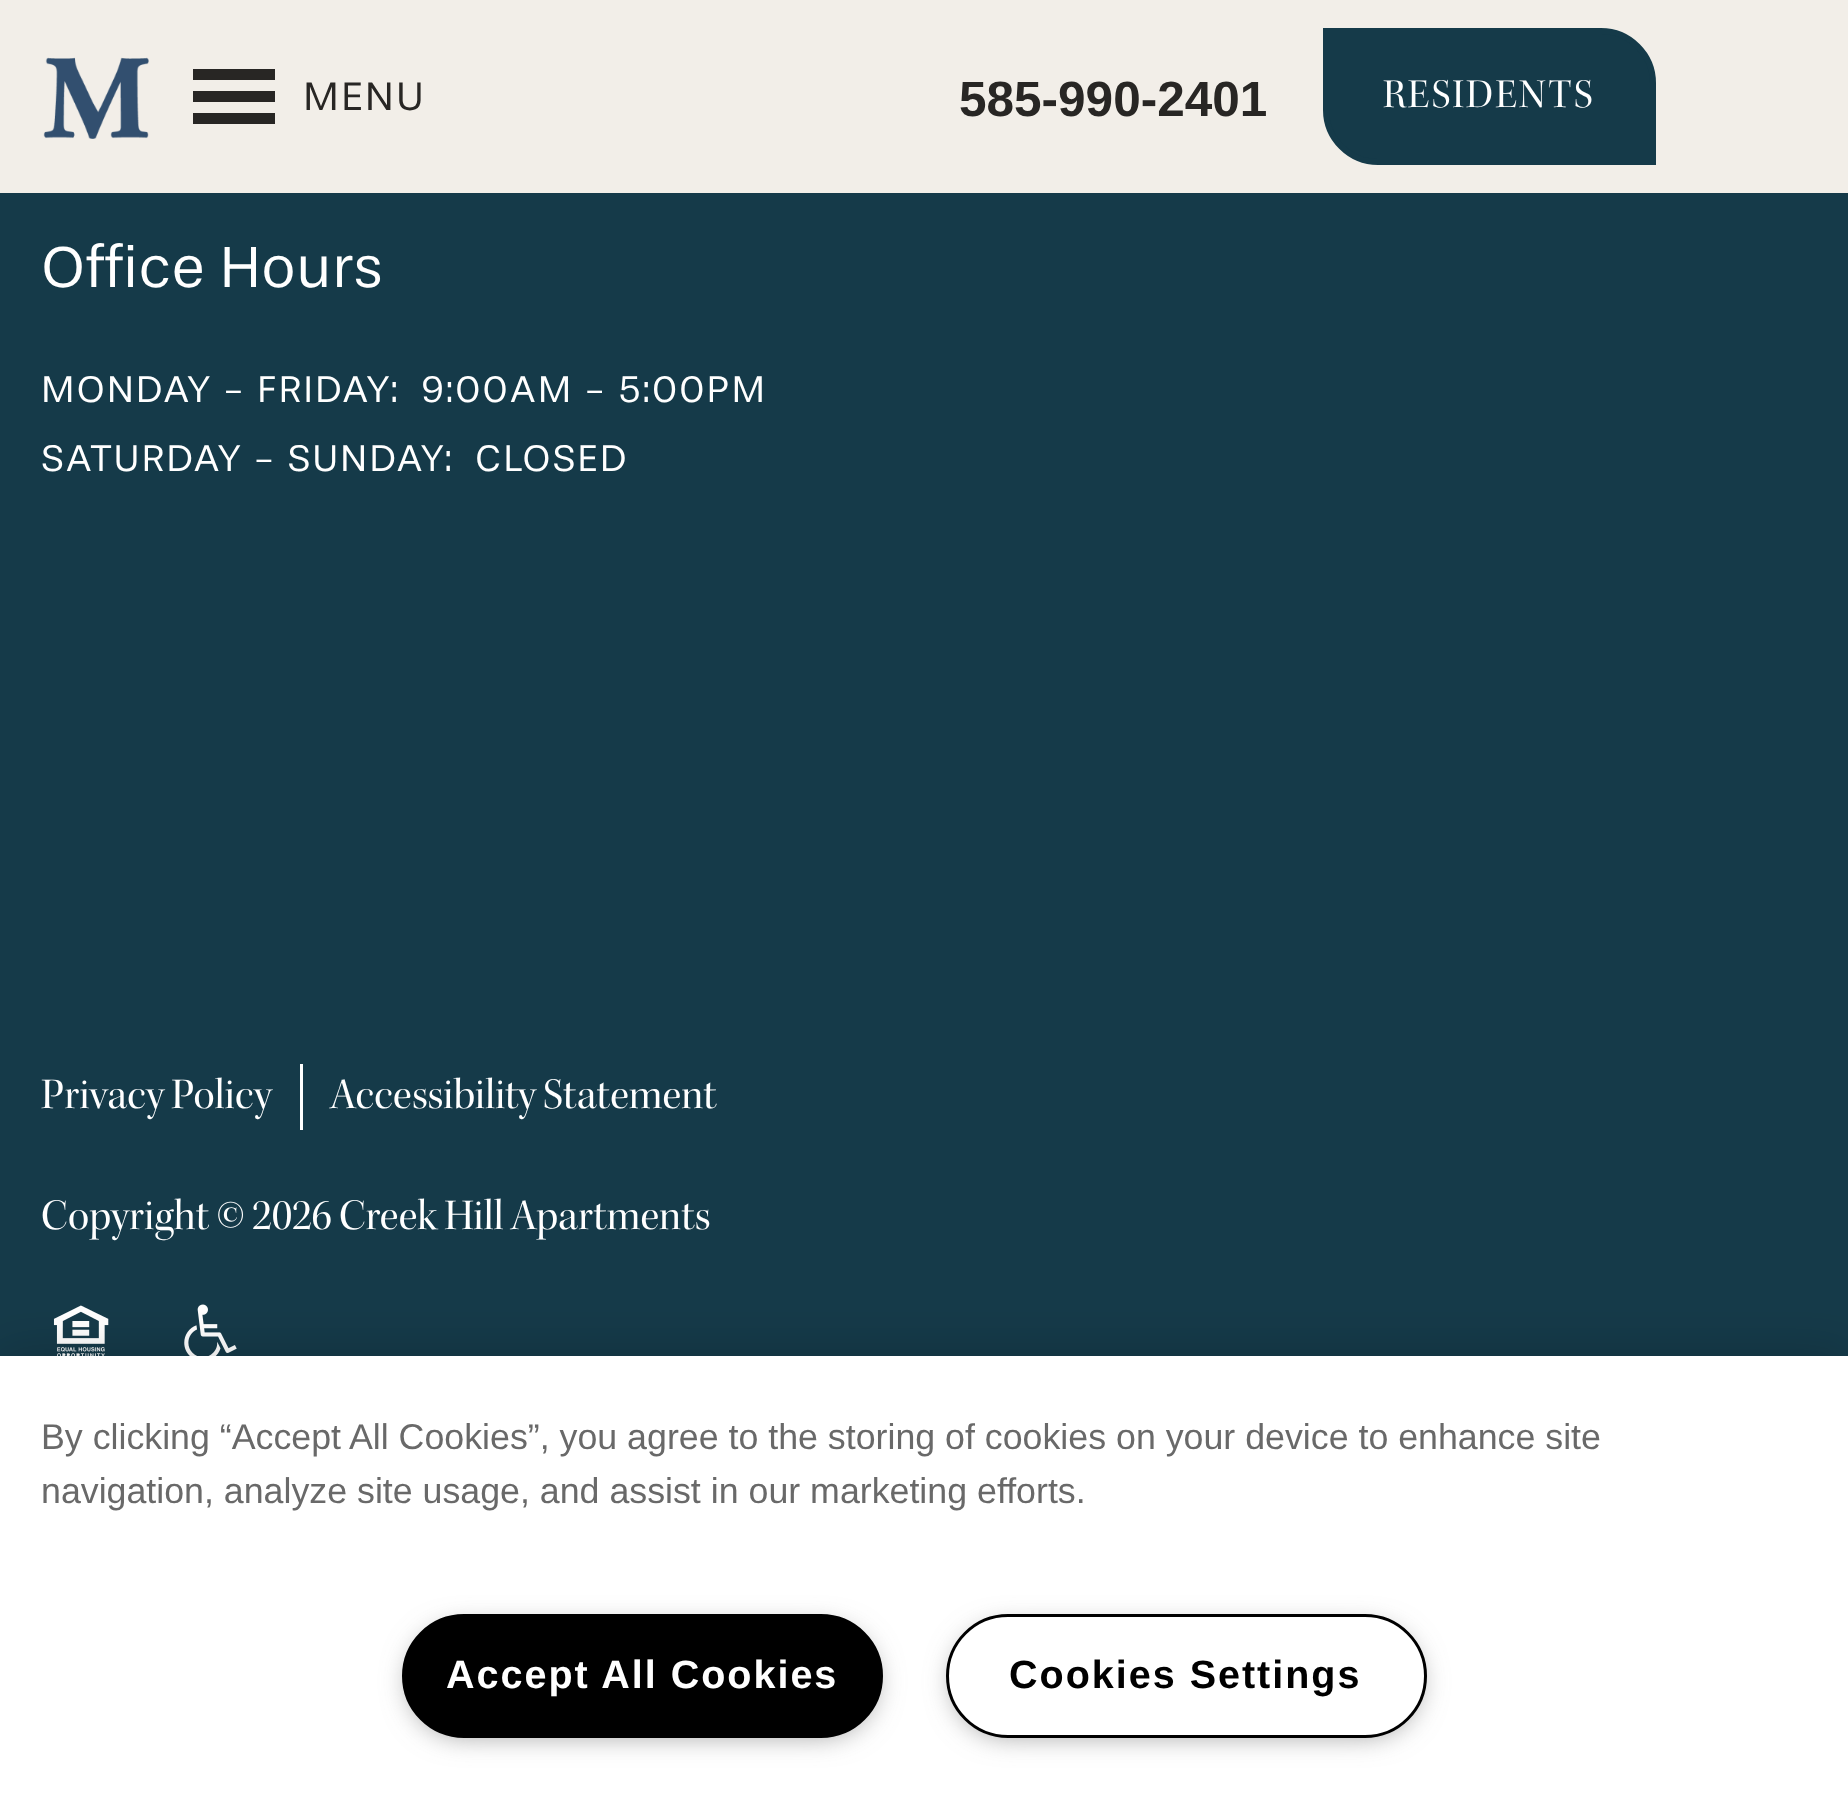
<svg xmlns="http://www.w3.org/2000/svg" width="1848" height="1805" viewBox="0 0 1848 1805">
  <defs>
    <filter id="blur1" x="-50%" y="-200%" width="200%" height="500%"><feGaussianBlur stdDeviation="25"/></filter>
    <filter id="blur2" x="-50%" y="-200%" width="200%" height="500%"><feGaussianBlur stdDeviation="14"/></filter>
  </defs>
  <rect width="100%" height="100%" fill="#153a49"/>
  <rect x="0" y="0" width="1848" height="193" fill="#f2eee8"/>
  <image x="43" y="57" width="106" height="82" href="img1.png"/>
  <rect x="193" y="69" width="82" height="11" fill="#282624"/>
  <rect x="193" y="91" width="82" height="11" fill="#282624"/>
  <rect x="193" y="113" width="82" height="11" fill="#282624"/>
  <text x="303" y="110" font-family="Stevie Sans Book" font-size="41.25" letter-spacing="2" fill="#282624">MENU</text>
  <text x="959" y="116" font-family="Liberation Sans" font-size="49.5" font-weight="bold" fill="#282624">585-990-2401</text>
  <path d="M1326 31H1601C1629.5 31 1653 54.5 1653 83V162H1378C1349.5 162 1326 138.5 1326 110Z" fill="#153a49" stroke="#153a49" stroke-width="6"/>
  <text x="1383" y="107" font-family="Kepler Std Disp" font-size="41.25" letter-spacing="2" fill="#ffffff">RESIDENTS</text>
  <text x="41" y="287" font-family="Stevie Sans Book" font-size="60" fill="#ffffff">Office Hours</text>
  <text x="41" y="402" font-family="Stevie Sans Book" font-size="38.5" letter-spacing="1.9" fill="#ffffff">MONDAY - FRIDAY:</text>
  <text x="421" y="402" font-family="Stevie Sans Book" font-size="38.5" letter-spacing="1.9" fill="#ffffff">9:00AM - 5:00PM</text>
  <text x="41" y="471" font-family="Stevie Sans Book" font-size="38.5" letter-spacing="1.9" fill="#ffffff">SATURDAY - SUNDAY:</text>
  <text x="475" y="471" font-family="Stevie Sans Book" font-size="38.5" letter-spacing="1.9" fill="#ffffff">CLOSED</text>
  <rect x="300" y="1064" width="3" height="66" fill="#ffffff"/>
  <text x="41" y="1108" font-family="Kepler Std Disp" font-size="44" fill="#ffffff">Privacy Policy</text>
  <text x="330" y="1108" font-family="Kepler Std Disp" font-size="44" fill="#ffffff">Accessibility Statement</text>
  <text x="41" y="1229" font-family="Kepler Std Disp" font-size="44" fill="#ffffff">Copyright © 2026 Creek Hill Apartments</text>
  <image x="53" y="1305" width="56" height="51" href="img2.png"/>
  <image x="184" y="1304" width="53" height="52" href="img3.png"/>
  <rect x="0" y="1356" width="1848" height="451" fill="#000000" fill-opacity="0.2" filter="url(#blur1)"/>
  <rect x="0" y="1356" width="1848" height="449" fill="#ffffff"/>
  <text x="41" y="1449" font-family="Liberation Sans" font-size="35.75" fill="#696969">By clicking “Accept All Cookies”, you agree to the storing of cookies on your device to enhance site</text>
  <text x="41" y="1503" font-family="Liberation Sans" font-size="35.75" fill="#696969">navigation, analyze site usage, and assist in our marketing efforts.</text>
  <rect x="410" y="1628" width="465" height="107" rx="53.5" fill="#999999" filter="url(#blur2)"/>
  <rect x="403.5" y="1615.5" width="478" height="121" rx="60.5" fill="#000000" stroke="#000000" stroke-width="3"/>
  <text x="446" y="1688" font-family="Liberation Sans" font-size="39.5" font-weight="bold" letter-spacing="2" fill="#ffffff">Accept All Cookies</text>
  <rect x="954" y="1628" width="465" height="107" rx="53.5" fill="#999999" filter="url(#blur2)"/>
  <rect x="947.5" y="1615.5" width="478" height="121" rx="60.5" fill="#ffffff" stroke="#000000" stroke-width="3"/>
  <text x="1009" y="1688" font-family="Liberation Sans" font-size="39.5" font-weight="bold" letter-spacing="2" fill="#000000">Cookies Settings</text>
</svg>
